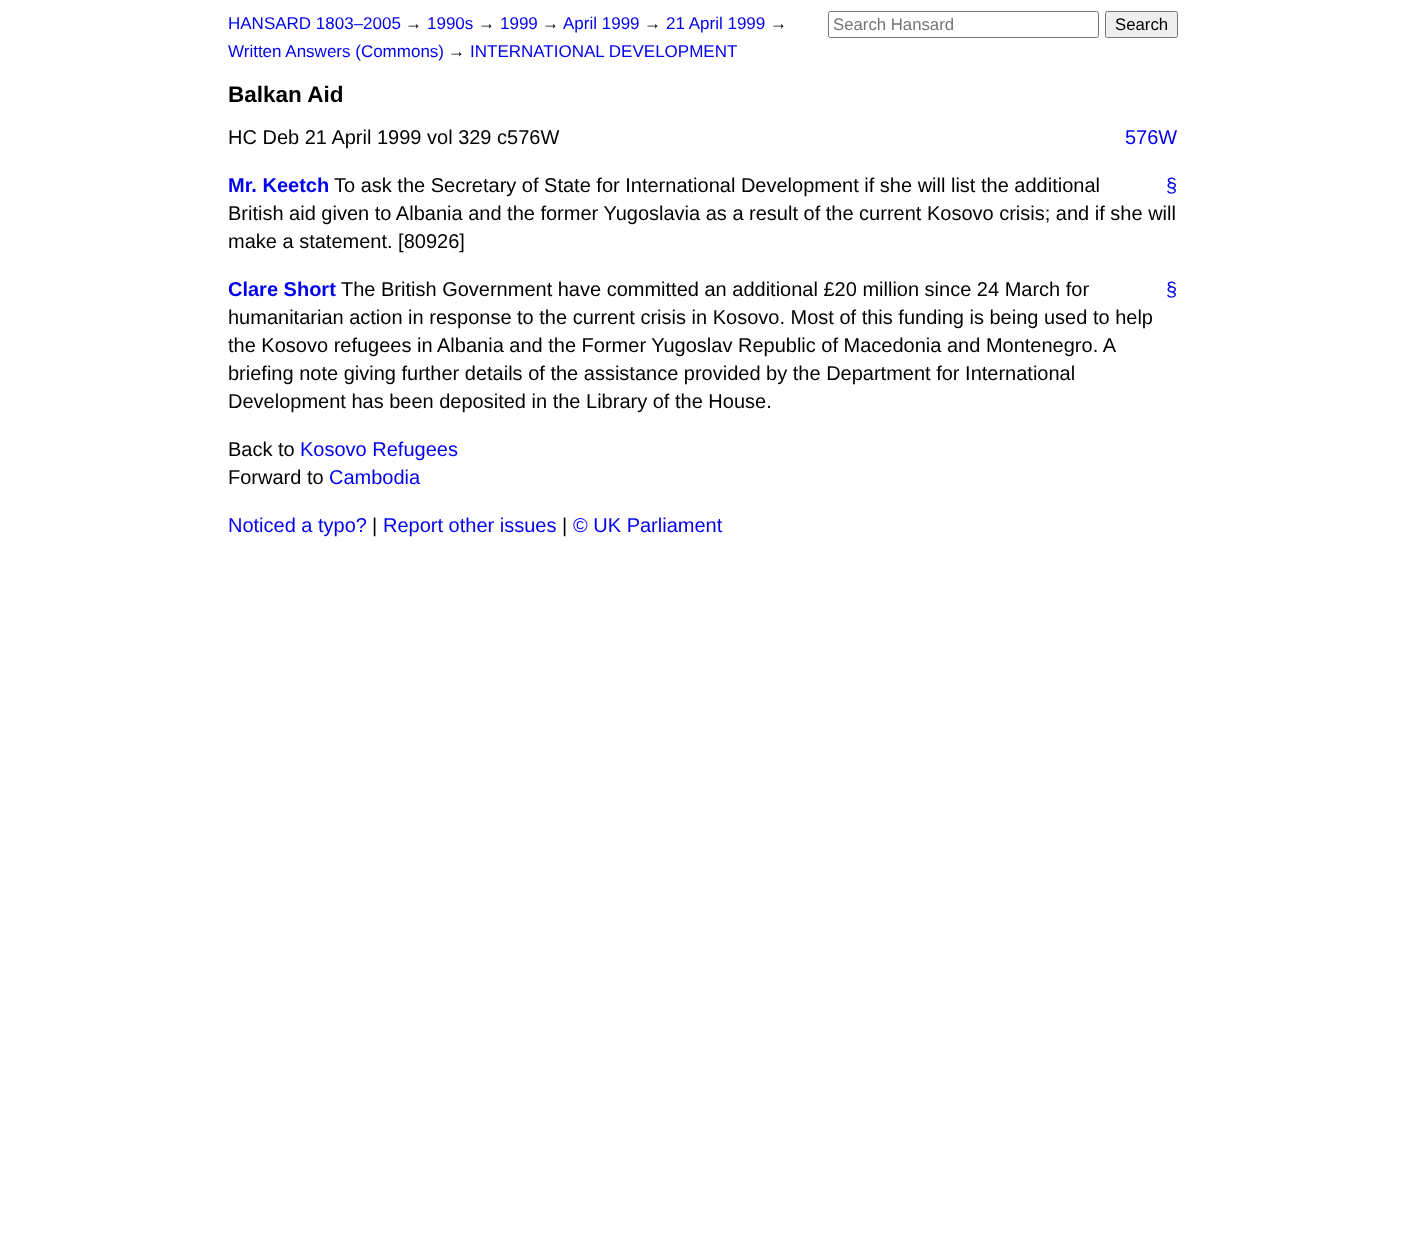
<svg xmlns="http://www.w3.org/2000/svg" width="1404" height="1239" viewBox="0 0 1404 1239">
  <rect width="100%" height="100%" fill="#ffffff"/>
  <text x="228" y="29" font-family="Liberation Sans" font-size="17" fill="#0000ee">HANSARD 1803–2005</text>
  <text x="405" y="29" font-family="Liberation Sans" font-size="17" fill="#000000">→</text>
  <text x="427" y="29" font-family="Liberation Sans" font-size="17" fill="#0000ee">1990s</text>
  <text x="478" y="29" font-family="Liberation Sans" font-size="17" fill="#000000">→</text>
  <text x="500" y="29" font-family="Liberation Sans" font-size="17" fill="#0000ee">1999</text>
  <text x="542" y="29" font-family="Liberation Sans" font-size="17" fill="#000000">→</text>
  <text x="563" y="29" font-family="Liberation Sans" font-size="17" fill="#0000ee">April 1999</text>
  <text x="644" y="29" font-family="Liberation Sans" font-size="17" fill="#000000">→</text>
  <text x="666" y="29" font-family="Liberation Sans" font-size="17" fill="#0000ee">21 April 1999</text>
  <text x="770" y="29" font-family="Liberation Sans" font-size="17" fill="#000000">→</text>
  <text x="228" y="57" font-family="Liberation Sans" font-size="17" fill="#0000ee">Written Answers (Commons)</text>
  <text x="448" y="57" font-family="Liberation Sans" font-size="17" fill="#000000">→</text>
  <text x="470" y="57" font-family="Liberation Sans" font-size="17" fill="#0000ee">INTERNATIONAL DEVELOPMENT</text>
  <rect x="828.5" y="11.5" width="270" height="26" rx="2" fill="none" stroke="#767676"/>
  <text x="833" y="30" font-family="Liberation Sans" font-size="16.75" fill="#757575">Search Hansard</text>
  <rect x="1105.5" y="11.5" width="72" height="26" rx="2" fill="#efefef" stroke="#767676"/>
  <text x="1115" y="30" font-family="Liberation Sans" font-size="16.75" fill="#000000">Search</text>
  <text x="228" y="102" font-family="Liberation Sans" font-size="22.5" font-weight="bold" fill="#000000">Balkan Aid</text>
  <text x="228" y="144" font-family="Liberation Sans" font-size="20" fill="#000000">HC Deb 21 April 1999 vol 329 c576W</text>
  <text x="1125" y="144" font-family="Liberation Sans" font-size="20" fill="#0000ee">576W</text>
  <text x="228" y="192" font-family="Liberation Sans" font-size="20" font-weight="bold" fill="#0000ee">Mr. Keetch</text>
  <text x="334" y="192" font-family="Liberation Sans" font-size="20" fill="#000000">To ask the Secretary of State for International Development if she will list the additional</text>
  <text x="1166" y="192" font-family="Liberation Sans" font-size="20" fill="#0000ee">§</text>
  <text x="228" y="220" font-family="Liberation Sans" font-size="20" fill="#000000">British aid given to Albania and the former Yugoslavia as a result of the current Kosovo crisis; and if she will</text>
  <text x="228" y="248" font-family="Liberation Sans" font-size="20" fill="#000000">make a statement. [80926]</text>
  <text x="228" y="296" font-family="Liberation Sans" font-size="20" font-weight="bold" fill="#0000ee">Clare Short</text>
  <text x="341" y="296" font-family="Liberation Sans" font-size="20" fill="#000000">The British Government have committed an additional £20 million since 24 March for</text>
  <text x="1166" y="296" font-family="Liberation Sans" font-size="20" fill="#0000ee">§</text>
  <text x="228" y="324" font-family="Liberation Sans" font-size="20" fill="#000000">humanitarian action in response to the current crisis in Kosovo. Most of this funding is being used to help</text>
  <text x="228" y="352" font-family="Liberation Sans" font-size="20" fill="#000000">the Kosovo refugees in Albania and the Former Yugoslav Republic of Macedonia and Montenegro. A</text>
  <text x="228" y="380" font-family="Liberation Sans" font-size="20" fill="#000000">briefing note giving further details of the assistance provided by the Department for International</text>
  <text x="228" y="408" font-family="Liberation Sans" font-size="20" fill="#000000">Development has been deposited in the Library of the House.</text>
  <text x="228" y="456" font-family="Liberation Sans" font-size="20" fill="#000000">Back to</text>
  <text x="300" y="456" font-family="Liberation Sans" font-size="20" fill="#0000ee">Kosovo Refugees</text>
  <text x="228" y="484" font-family="Liberation Sans" font-size="20" fill="#000000">Forward to</text>
  <text x="329" y="484" font-family="Liberation Sans" font-size="20" fill="#0000ee">Cambodia</text>
  <text x="228" y="532" font-family="Liberation Sans" font-size="20" fill="#0000ee">Noticed a typo?</text>
  <text x="372" y="532" font-family="Liberation Sans" font-size="20" fill="#000000">|</text>
  <text x="383" y="532" font-family="Liberation Sans" font-size="20" fill="#0000ee">Report other issues</text>
  <text x="562" y="532" font-family="Liberation Sans" font-size="20" fill="#000000">|</text>
  <text x="573" y="532" font-family="Liberation Sans" font-size="20" fill="#0000ee">© UK Parliament</text>
</svg>
